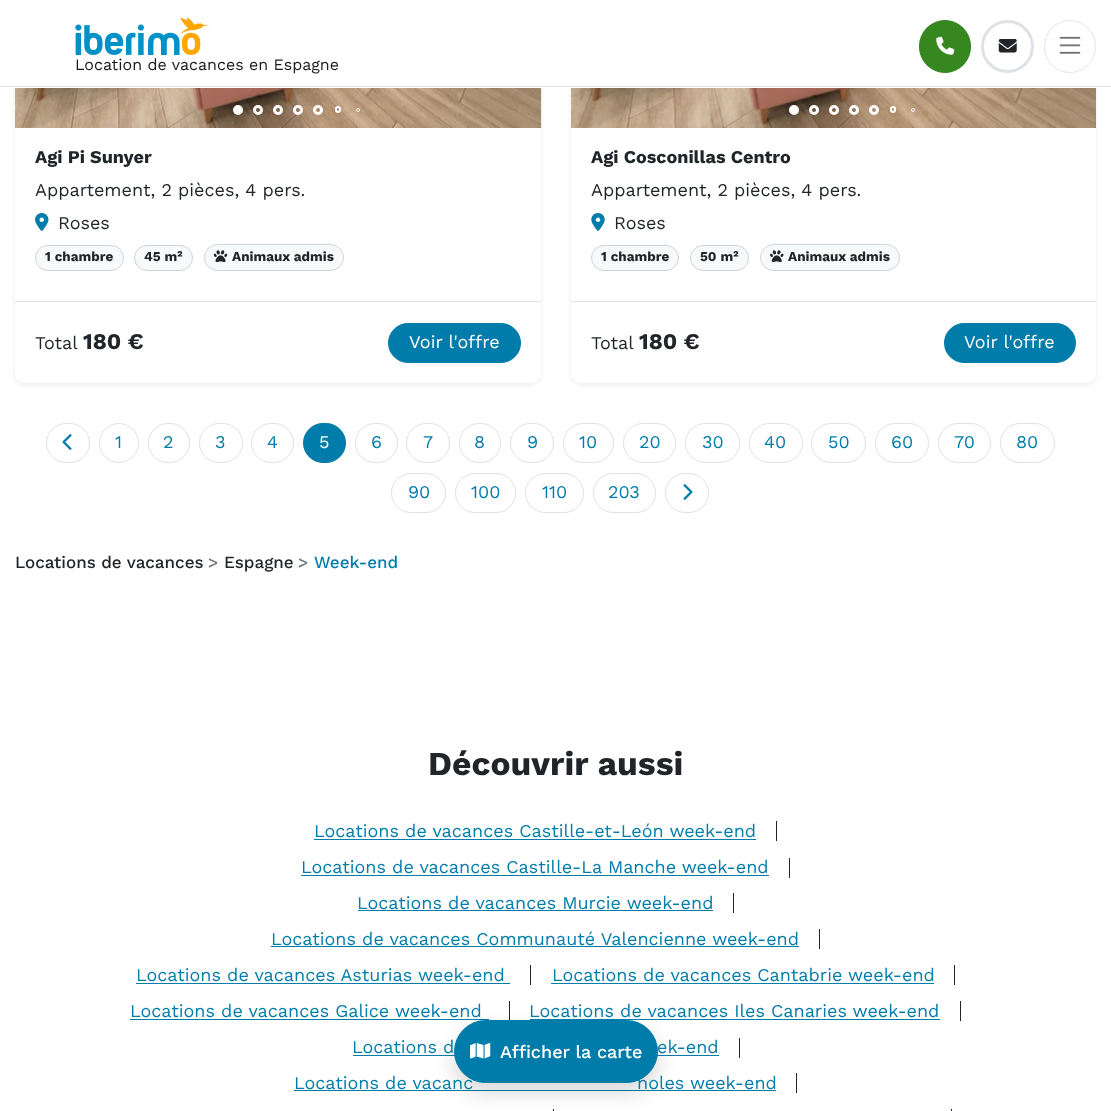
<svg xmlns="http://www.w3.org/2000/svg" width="1111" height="1111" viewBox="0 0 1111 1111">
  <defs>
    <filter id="blur1" x="-50%" y="-200%" width="200%" height="500%"><feGaussianBlur stdDeviation="2.5"/></filter>
    <filter id="blur2" x="-50%" y="-200%" width="200%" height="500%"><feGaussianBlur stdDeviation="10"/></filter>
  </defs>
  <rect width="100%" height="100%" fill="#ffffff"/>
  <rect x="15" y="-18" width="526" height="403" rx="10" fill="#000000" fill-opacity="0.07" filter="url(#blur1)"/>
  <rect x="15" y="-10" width="526" height="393" rx="10" fill="#ffffff"/>
  <rect x="571" y="-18" width="525" height="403" rx="10" fill="#000000" fill-opacity="0.07" filter="url(#blur1)"/>
  <rect x="571" y="-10" width="525" height="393" rx="10" fill="#ffffff"/>
  <rect x="12" y="0" width="1087" height="88" fill="#ffffff"/>
  <rect x="0" y="86" width="1111" height="1" fill="#dee2e6"/>
  <image x="75" y="18" width="135" height="37" href="img1.png"/>
  <text x="75" y="70" font-family="Work Sans" font-size="16" fill="#1a1a1a">Location de vacances en Espagne</text>
  <rect x="919.5" y="20.5" width="51" height="52" rx="25.5" fill="#36871f" stroke="#36871f"/>
  <image x="936" y="36" width="19" height="19" href="img2.png"/>
  <circle cx="1007.5" cy="46.5" r="25" fill="none" stroke="#dee2e6" stroke-width="3"/>
  <image x="998" y="39" width="19" height="14" href="img3.png"/>
  <rect x="1044.5" y="20.5" width="51" height="52" rx="25.5" fill="none" stroke="#e6e6e6"/>
  <image x="1059" y="36" width="22" height="18" href="img4.png"/>
  <image x="15" y="88" width="527" height="40" href="img5.png"/>
  <circle cx="238" cy="110" r="3.5" fill="#ffffff" stroke="#ffffff" stroke-width="3"/>
  <circle cx="258" cy="110" r="3.5" fill="none" stroke="#ffffff" stroke-width="3"/>
  <circle cx="278" cy="110" r="3.5" fill="none" stroke="#ffffff" stroke-width="3"/>
  <circle cx="298" cy="110" r="3.5" fill="none" stroke="#ffffff" stroke-width="3"/>
  <circle cx="318" cy="110" r="3.5" fill="none" stroke="#ffffff" stroke-width="3"/>
  <rect x="336" y="107" width="4" height="5" rx="2" fill="none" stroke="#ffffff" stroke-width="2"/>
  <circle cx="358" cy="110" r="1.55" fill="none" stroke="#ffffff" stroke-width="0.9"/>
  <text x="35" y="163" font-family="Work Sans" font-size="18" font-weight="bold" fill="#212529">Agi Pi Sunyer</text>
  <text x="35" y="196" font-family="Work Sans" font-size="18" fill="#212529">Appartement, 2 pièces, 4 pers.</text>
  <image x="35" y="213" width="14" height="18" href="img6.png"/>
  <text x="58" y="229" font-family="Work Sans" font-size="18" fill="#212529">Roses</text>
  <rect x="35.5" y="245.5" width="88" height="25" rx="12.5" fill="#f8f9fa" stroke="#ced4da"/>
  <text x="45" y="261" font-family="Work Sans" font-size="13.5" font-weight="bold" fill="#212529">1 chambre</text>
  <rect x="134.5" y="245.5" width="58" height="25" rx="12.5" fill="#f8f9fa" stroke="#ced4da"/>
  <text x="144" y="261" font-family="Work Sans" font-size="13.5" font-weight="bold" fill="#212529">45 m²</text>
  <rect x="204.5" y="244.5" width="139" height="26" rx="13" fill="#f8f9fa" stroke="#ced4da"/>
  <image x="213" y="250" width="15" height="13" href="img7.png"/>
  <text x="232" y="261" font-family="Work Sans" font-size="13.5" font-weight="bold" fill="#212529">Animaux admis</text>
  <rect x="15" y="301" width="526" height="1" fill="#dee2e6"/>
  <text x="35" y="349" font-family="Work Sans" font-size="18" fill="#212529">Total</text>
  <text x="83" y="349" font-family="Work Sans" font-size="22.5" font-weight="bold" fill="#212529">180 €</text>
  <rect x="388.5" y="323.5" width="132" height="39" rx="19.5" fill="#007caa" stroke="#007caa"/>
  <text x="409" y="348" font-family="Work Sans" font-size="18" fill="#ffffff">Voir l'offre</text>
  <image x="571" y="88" width="525" height="40" href="img8.png"/>
  <circle cx="794" cy="110" r="3.5" fill="#ffffff" stroke="#ffffff" stroke-width="3"/>
  <circle cx="814" cy="110" r="3.5" fill="none" stroke="#ffffff" stroke-width="3"/>
  <circle cx="834" cy="110" r="3.5" fill="none" stroke="#ffffff" stroke-width="3"/>
  <circle cx="854" cy="110" r="3.5" fill="none" stroke="#ffffff" stroke-width="3"/>
  <circle cx="874" cy="110" r="3.5" fill="none" stroke="#ffffff" stroke-width="3"/>
  <rect x="891" y="107" width="4" height="5" rx="2" fill="none" stroke="#ffffff" stroke-width="2"/>
  <circle cx="913" cy="110" r="1.55" fill="none" stroke="#ffffff" stroke-width="0.9"/>
  <text x="591" y="163" font-family="Work Sans" font-size="18" font-weight="bold" fill="#212529">Agi Cosconillas Centro</text>
  <text x="591" y="196" font-family="Work Sans" font-size="18" fill="#212529">Appartement, 2 pièces, 4 pers.</text>
  <image x="591" y="213" width="14" height="18" href="img9.png"/>
  <text x="614" y="229" font-family="Work Sans" font-size="18" fill="#212529">Roses</text>
  <rect x="591.5" y="245.5" width="87" height="25" rx="12.5" fill="#f8f9fa" stroke="#ced4da"/>
  <text x="601" y="261" font-family="Work Sans" font-size="13.5" font-weight="bold" fill="#212529">1 chambre</text>
  <rect x="690.5" y="245.5" width="58" height="25" rx="12.5" fill="#f8f9fa" stroke="#ced4da"/>
  <text x="700" y="261" font-family="Work Sans" font-size="13.5" font-weight="bold" fill="#212529">50 m²</text>
  <rect x="760.5" y="244.5" width="139" height="26" rx="13" fill="#f8f9fa" stroke="#ced4da"/>
  <image x="770" y="250" width="14" height="13" href="img10.png"/>
  <text x="788" y="261" font-family="Work Sans" font-size="13.5" font-weight="bold" fill="#212529">Animaux admis</text>
  <rect x="571" y="301" width="525" height="1" fill="#dee2e6"/>
  <text x="591" y="349" font-family="Work Sans" font-size="18" fill="#212529">Total</text>
  <text x="639" y="349" font-family="Work Sans" font-size="22.5" font-weight="bold" fill="#212529">180 €</text>
  <rect x="944.5" y="323.5" width="131" height="39" rx="19.5" fill="#007caa" stroke="#007caa"/>
  <text x="964" y="348" font-family="Work Sans" font-size="18" fill="#ffffff">Voir l'offre</text>
  <rect x="46.5" y="423.5" width="43" height="39" rx="19.5" fill="none" stroke="#dee2e6"/>
  <image x="62" y="434" width="10" height="16" href="img11.png"/>
  <circle cx="119" cy="443" r="19.5" fill="none" stroke="#dee2e6"/>
  <text x="115" y="448" font-family="Work Sans" font-size="18" fill="#007caa">1</text>
  <rect x="148.5" y="423.5" width="41" height="39" rx="19.5" fill="none" stroke="#dee2e6"/>
  <text x="163" y="448" font-family="Work Sans" font-size="18" fill="#007caa">2</text>
  <rect x="199.5" y="423.5" width="43" height="39" rx="19.5" fill="none" stroke="#dee2e6"/>
  <text x="215" y="448" font-family="Work Sans" font-size="18" fill="#007caa">3</text>
  <rect x="251.5" y="423.5" width="42" height="39" rx="19.5" fill="none" stroke="#dee2e6"/>
  <text x="267" y="448" font-family="Work Sans" font-size="18" fill="#007caa">4</text>
  <rect x="303.5" y="423.5" width="42" height="39" rx="19.5" fill="#007caa" stroke="#007caa"/>
  <text x="319" y="448" font-family="Work Sans" font-size="18" fill="#ffffff">5</text>
  <rect x="355.5" y="423.5" width="42" height="39" rx="19.5" fill="none" stroke="#dee2e6"/>
  <text x="371" y="448" font-family="Work Sans" font-size="18" fill="#007caa">6</text>
  <rect x="406.5" y="423.5" width="43" height="39" rx="19.5" fill="none" stroke="#dee2e6"/>
  <text x="423" y="448" font-family="Work Sans" font-size="18" fill="#007caa">7</text>
  <rect x="459.5" y="423.5" width="41" height="39" rx="19.5" fill="none" stroke="#dee2e6"/>
  <text x="474" y="448" font-family="Work Sans" font-size="18" fill="#007caa">8</text>
  <rect x="510.5" y="423.5" width="43" height="39" rx="19.5" fill="none" stroke="#dee2e6"/>
  <text x="527" y="448" font-family="Work Sans" font-size="18" fill="#007caa">9</text>
  <rect x="563.5" y="423.5" width="50" height="39" rx="19.5" fill="none" stroke="#dee2e6"/>
  <text x="579" y="448" font-family="Work Sans" font-size="18" fill="#007caa">10</text>
  <rect x="623.5" y="423.5" width="52" height="39" rx="19.5" fill="none" stroke="#dee2e6"/>
  <text x="639" y="448" font-family="Work Sans" font-size="18" fill="#007caa">20</text>
  <rect x="685.5" y="423.5" width="54" height="39" rx="19.5" fill="none" stroke="#dee2e6"/>
  <text x="702" y="448" font-family="Work Sans" font-size="18" fill="#007caa">30</text>
  <rect x="749.5" y="423.5" width="53" height="39" rx="19.5" fill="none" stroke="#dee2e6"/>
  <text x="764" y="448" font-family="Work Sans" font-size="18" fill="#007caa">40</text>
  <rect x="811.5" y="423.5" width="54" height="39" rx="19.5" fill="none" stroke="#dee2e6"/>
  <text x="828" y="448" font-family="Work Sans" font-size="18" fill="#007caa">50</text>
  <rect x="875.5" y="423.5" width="53" height="39" rx="19.5" fill="none" stroke="#dee2e6"/>
  <text x="891" y="448" font-family="Work Sans" font-size="18" fill="#007caa">60</text>
  <rect x="938.5" y="423.5" width="52" height="39" rx="19.5" fill="none" stroke="#dee2e6"/>
  <text x="954" y="448" font-family="Work Sans" font-size="18" fill="#007caa">70</text>
  <rect x="1000.5" y="423.5" width="54" height="39" rx="19.5" fill="none" stroke="#dee2e6"/>
  <text x="1016" y="448" font-family="Work Sans" font-size="18" fill="#007caa">80</text>
  <rect x="391.5" y="473.5" width="54" height="39" rx="19.5" fill="none" stroke="#dee2e6"/>
  <text x="408" y="498" font-family="Work Sans" font-size="18" fill="#007caa">90</text>
  <rect x="455.5" y="473.5" width="60" height="39" rx="19.5" fill="none" stroke="#dee2e6"/>
  <text x="471" y="498" font-family="Work Sans" font-size="18" fill="#007caa">100</text>
  <rect x="525.5" y="473.5" width="58" height="39" rx="19.5" fill="none" stroke="#dee2e6"/>
  <text x="542" y="498" font-family="Work Sans" font-size="18" fill="#007caa">110</text>
  <rect x="593.5" y="473.5" width="62" height="39" rx="19.5" fill="none" stroke="#dee2e6"/>
  <text x="608" y="498" font-family="Work Sans" font-size="18" fill="#007caa">203</text>
  <rect x="665.5" y="473.5" width="43" height="39" rx="19.5" fill="none" stroke="#dee2e6"/>
  <image x="683" y="484" width="10" height="16" href="img12.png"/>
  <text x="15" y="568" font-family="Work Sans" font-size="17" font-weight="500" fill="#212529">Locations de vacances</text>
  <text x="208" y="568" font-family="Work Sans" font-size="17" font-weight="500" fill="#6c757d">&gt;</text>
  <text x="224" y="568" font-family="Work Sans" font-size="17" font-weight="500" fill="#212529">Espagne</text>
  <text x="298" y="568" font-family="Work Sans" font-size="17" font-weight="500" fill="#6c757d">&gt;</text>
  <text x="314" y="568" font-family="Work Sans" font-size="17" font-weight="500" fill="#007caa">Week-end</text>
  <rect x="509" y="1001" width="1" height="20" fill="#212529"/>
  <rect x="130" y="1019" width="359" height="1" fill="#007caa"/>
  <rect x="530" y="1019" width="410" height="1" fill="#007caa"/>
  <rect x="353" y="1055" width="366" height="1" fill="#007caa"/>
  <rect x="294" y="1090" width="482" height="1" fill="#007caa"/>
  <rect x="553" y="1109" width="1" height="2" fill="#212529"/>
  <rect x="454" y="1030" width="204" height="63" rx="31.5" fill="#000000" fill-opacity="0.15" filter="url(#blur2)"/>
  <rect x="454.5" y="1020.5" width="203" height="62" rx="31" fill="#007caa" stroke="#007caa"/>
  <image x="470" y="1043" width="21" height="16" href="img13.png"/>
  <text x="500" y="1058" font-family="Work Sans" font-size="18" font-weight="500" fill="#ffffff">Afficher la carte</text>
  <text x="428" y="775" font-family="Work Sans" font-size="33.5" font-weight="bold" fill="#212529">Découvrir aussi</text>
  <text x="314" y="837" font-family="Work Sans" font-size="18" fill="#007caa">Locations de vacances Castille-et-León week-end</text>
  <rect x="776" y="821" width="1" height="20" fill="#212529"/>
  <rect x="314" y="839" width="442" height="1" fill="#007caa"/>
  <text x="301" y="873" font-family="Work Sans" font-size="18" fill="#007caa">Locations de vacances Castille-La Manche week-end</text>
  <rect x="789" y="858" width="1" height="20" fill="#212529"/>
  <rect x="301" y="875" width="468" height="1" fill="#007caa"/>
  <text x="357" y="909" font-family="Work Sans" font-size="18" fill="#007caa">Locations de vacances Murcie week-end</text>
  <rect x="733" y="893" width="1" height="20" fill="#212529"/>
  <rect x="358" y="910" width="355" height="1" fill="#007caa"/>
  <text x="271" y="945" font-family="Work Sans" font-size="18" fill="#007caa">Locations de vacances Communauté Valencienne week-end</text>
  <rect x="819" y="929" width="1" height="20" fill="#212529"/>
  <rect x="271" y="946" width="528" height="1" fill="#007caa"/>
  <text x="136" y="981" font-family="Work Sans" font-size="18" fill="#007caa">Locations de vacances Asturias week-end</text>
  <rect x="530" y="965" width="1" height="20" fill="#212529"/>
  <rect x="136" y="983" width="374" height="1" fill="#007caa"/>
  <text x="552" y="981" font-family="Work Sans" font-size="18" fill="#007caa">Locations de vacances Cantabrie week-end</text>
  <rect x="954" y="965" width="1" height="20" fill="#212529"/>
  <rect x="551" y="983" width="383" height="1" fill="#007caa"/>
  <text x="130" y="1017" font-family="Work Sans" font-size="18" fill="#007caa">Locations de vacances Galice week-end</text>
  <text x="529" y="1017" font-family="Work Sans" font-size="18" fill="#007caa">Locations de vacances Iles Canaries week-end</text>
  <rect x="960" y="1001" width="1" height="20" fill="#212529"/>
  <text x="352" y="1053" font-family="Work Sans" font-size="18" fill="#007caa">Locations d</text>
  <text x="657" y="1053" font-family="Work Sans" font-size="18" fill="#007caa">ek-end</text>
  <rect x="739" y="1038" width="1" height="20" fill="#212529"/>
  <text x="294" y="1089" font-family="Work Sans" font-size="18" fill="#007caa">Locations de vacanc</text>
  <text x="637" y="1089" font-family="Work Sans" font-size="18" fill="#007caa">noles week-end</text>
  <rect x="796" y="1073" width="1" height="20" fill="#212529"/>
  <rect x="951" y="1109" width="1" height="2" fill="#212529"/>
</svg>
